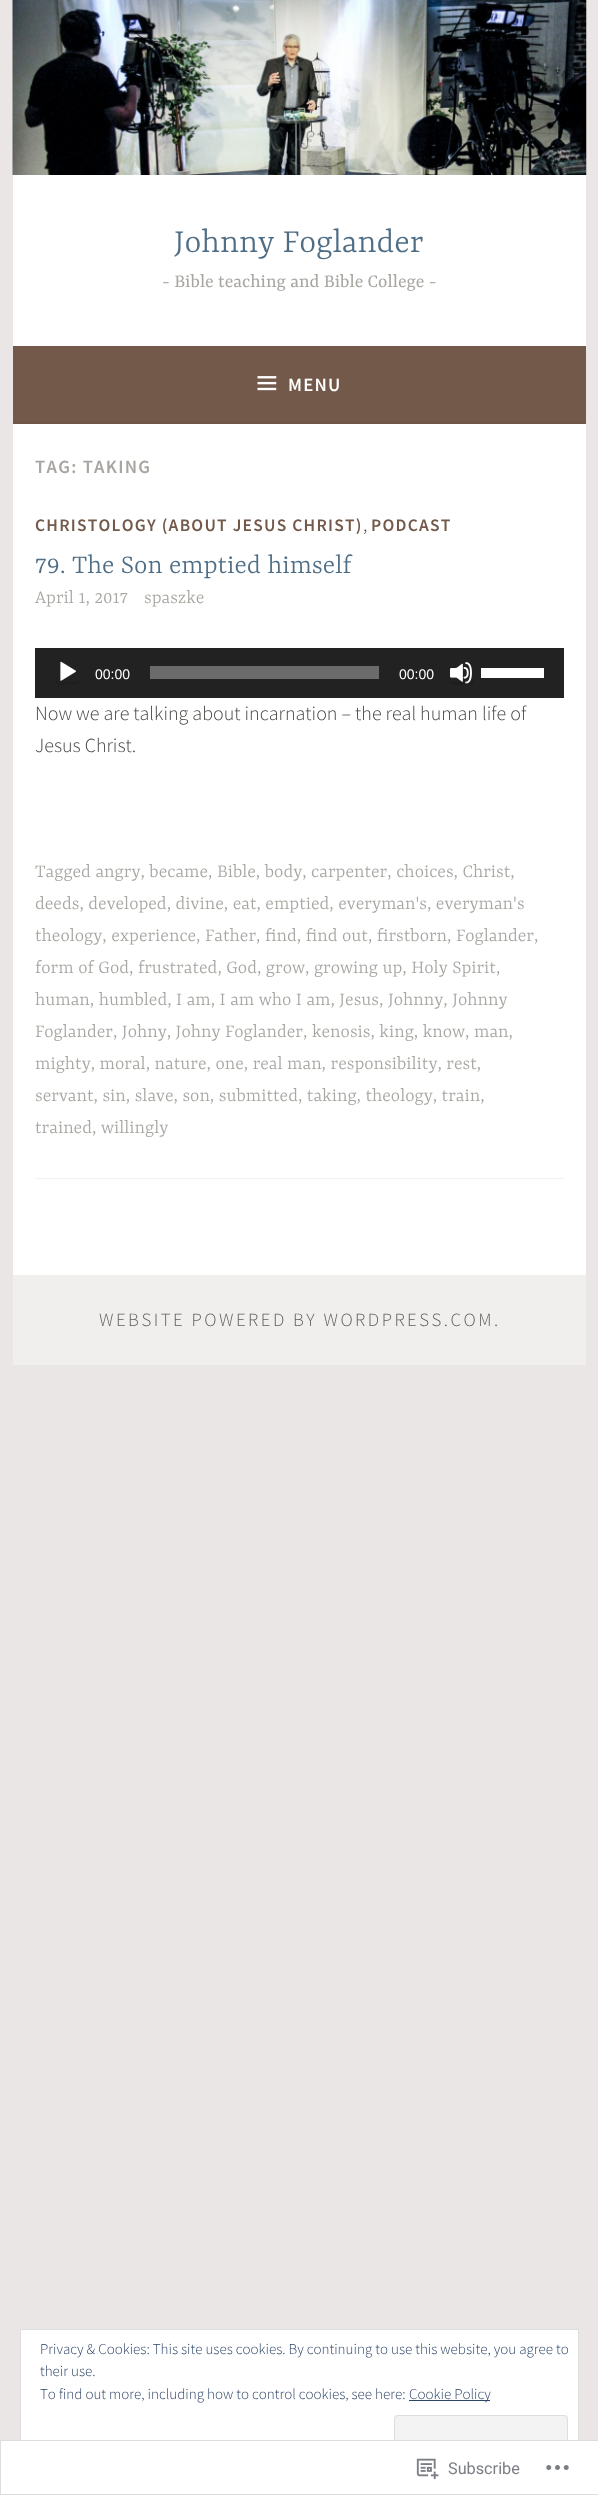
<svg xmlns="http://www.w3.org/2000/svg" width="598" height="2495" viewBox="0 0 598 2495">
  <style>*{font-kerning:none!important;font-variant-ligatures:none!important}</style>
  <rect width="100%" height="100%" fill="#eae6e5"/>
  <image x="12" y="0" width="575" height="175" href="img1.png"/>
  <rect x="13" y="175" width="573" height="171" fill="#ffffff"/>
  <text x="174" y="252" font-family="Yrsa" font-size="36.25" font-weight="300" fill="#4f6e86">Johnny Foglander</text>
  <text x="162" y="287" font-family="Yrsa" font-size="20" fill="#a8a6a1">- Bible teaching and Bible College -</text>
  <rect x="13" y="346" width="573" height="75" fill="#72594a"/>
  <rect x="13" y="421" width="573" height="3" fill="#6f5648"/>
  <image x="257" y="376" width="20" height="15" href="img2.png"/>
  <text x="288" y="391" font-family="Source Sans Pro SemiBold" font-size="18.75" font-weight="600" letter-spacing="1.25" fill="#ffffff">MENU</text>
  <rect x="13" y="424" width="573" height="851" fill="#ffffff"/>
  <text x="35" y="473" font-family="Source Sans Pro SemiBold" font-size="18.75" font-weight="600" letter-spacing="1.25" fill="#a8a6a1">TAG: TAKING</text>
  <text x="35" y="531" font-family="Source Sans Pro SemiBold" font-size="17.5" font-weight="600" letter-spacing="1.25" fill="#72594a">CHRISTOLOGY (ABOUT JESUS CHRIST)</text>
  <text x="363" y="531" font-family="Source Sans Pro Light" font-size="20" font-weight="300" fill="#444340">,</text>
  <text x="371" y="531" font-family="Source Sans Pro SemiBold" font-size="17.5" font-weight="600" letter-spacing="1.25" fill="#72594a">PODCAST</text>
  <text x="35" y="573" font-family="Yrsa" font-size="28.75" font-weight="300" fill="#4f6e86">79. The Son emptied himself</text>
  <text x="35" y="603" font-family="Yrsa" font-size="20" font-weight="300" fill="#a8a6a1">April 1, 2017</text>
  <text x="144" y="603" font-family="Yrsa" font-size="20" font-weight="300" fill="#a8a6a1">spaszke</text>
  <rect x="35" y="648" width="529" height="50" fill="#222222"/>
  <image x="60" y="661" width="16" height="20" href="img3.png"/>
  <path d="M80 678.5C79.5 681 78 682 73 682H59C56.5 682 55.5 680.5 55 678.5C55 684.5 56 685 62 685H73C79 685 80 684.5 80 678.5Z" fill="#1f1f1f"/>
  <text x="95" y="679" font-family="Liberation Sans" font-size="14" fill="#ffffff">00:00</text>
  <rect x="150" y="666" width="229" height="13" fill="#6b6b6b"/>
  <text x="399" y="679" font-family="Liberation Sans" font-size="14" fill="#ffffff">00:00</text>
  <image x="450" y="662" width="22" height="22" href="img4.png"/>
  <path d="M474 678.5C473.5 681 472 682 467 682H452C450.5 682 449.5 681 449 679.5C449 684.5 451 685 456 685H467C473 685 474 684.5 474 678.5Z" fill="#000000" fill-opacity="0.1"/>
  <rect x="481" y="668" width="63" height="10" fill="#ffffff"/>
  <text x="35" y="720" font-family="Source Sans Pro Light" font-size="20" font-weight="300" fill="#444340">Now we are talking about incarnation – the real human life of</text>
  <text x="35" y="752" font-family="Source Sans Pro Light" font-size="20" font-weight="300" fill="#444340">Jesus Christ.</text>
  <text x="35" y="877" font-family="Yrsa" font-size="20" font-weight="300" fill="#a8a6a1">Tagged angry, became, Bible, body, carpenter, choices, Christ,</text>
  <text x="35" y="909" font-family="Yrsa" font-size="20" font-weight="300" fill="#a8a6a1">deeds, developed, divine, eat, emptied, everyman's, everyman's</text>
  <text x="35" y="941" font-family="Yrsa" font-size="20" font-weight="300" fill="#a8a6a1">theology, experience, Father, find, find out, firstborn,</text>
  <text x="456" y="941" font-family="Yrsa" font-size="20" font-weight="300" fill="#a8a6a1">Foglander,</text>
  <text x="35" y="973" font-family="Yrsa" font-size="20" font-weight="300" fill="#a8a6a1">form of God, frustrated, God, grow, growing up, Holy Spirit,</text>
  <text x="35" y="1005" font-family="Yrsa" font-size="20" font-weight="300" fill="#a8a6a1">human, humbled, I am, I am who I am, Jesus, Johnny, Johnny</text>
  <text x="35" y="1037" font-family="Yrsa" font-size="20" font-weight="300" fill="#a8a6a1">Foglander, Johny, Johny Foglander,</text>
  <text x="312" y="1037" font-family="Yrsa" font-size="20" font-weight="300" fill="#a8a6a1">kenosis, king, know, man,</text>
  <text x="35" y="1069" font-family="Yrsa" font-size="20" font-weight="300" fill="#a8a6a1">mighty, moral, nature, one, real man, responsibility, rest,</text>
  <text x="35" y="1101" font-family="Yrsa" font-size="20" font-weight="300" fill="#a8a6a1">servant, sin, slave, son, submitted, taking, theology, train,</text>
  <text x="35" y="1133" font-family="Yrsa" font-size="20" font-weight="300" fill="#a8a6a1">trained, willingly</text>
  <rect x="35" y="1178" width="529" height="1" fill="#f2f2f2"/>
  <rect x="13" y="1275" width="573" height="90" fill="#f1eeee"/>
  <text x="99" y="1326" font-family="Source Sans Pro Light" font-size="18.75" font-weight="300" letter-spacing="2.5" fill="#606060">WEBSITE POWERED BY WORDPRESS.COM.</text>
  <rect x="20.5" y="2329.5" width="558" height="145" fill="#ffffff" stroke="#dedede"/>
  <text x="40" y="2354" font-family="Source Sans Pro Light" font-size="15" font-weight="300" fill="#2e4467">Privacy &amp; Cookies: This site uses cookies. By continuing to use this website, you agree to</text>
  <text x="40" y="2376" font-family="Source Sans Pro Light" font-size="15" font-weight="300" fill="#2e4467">their use.</text>
  <text x="40" y="2399" font-family="Source Sans Pro Light" font-size="15" font-weight="300" fill="#2e4467">To find out more, including how to control cookies, see here:</text>
  <rect x="409" y="2400" width="81" height="1" fill="#2e4467"/>
  <text x="409" y="2399" font-family="Source Sans Pro Light" font-size="15" font-weight="300" fill="#2e4467">Cookie Policy</text>
  <rect x="394" y="2415" width="174" height="49" rx="4" fill="#f3f3f3"/>
  <path d="M395 2458V2460C395 2462 396 2463 398 2463H564C565 2463 566 2462 566 2460V2458C566 2459 565 2460 564 2460H398C396 2460 395 2459 395 2458Z" fill="#dbdbdb"/>
  <rect x="394.5" y="2415.5" width="173" height="48" rx="3.5" fill="none" stroke="#dedede"/>
  <rect x="0" y="2440" width="598" height="55" fill="#ffffff" fill-opacity="0.98"/>
  <rect x="0.5" y="2440.5" width="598" height="54" fill="none" stroke="#dcdcde" stroke-opacity="0.98"/>
  <image x="416" y="2458" width="23" height="22" href="img5.png"/>
  <text x="448" y="2474" font-family="Roboto" font-size="16.25" fill="#7b7f84">Subscribe</text>
  <image x="546" y="2465" width="23" height="5" href="img6.png"/>
</svg>
